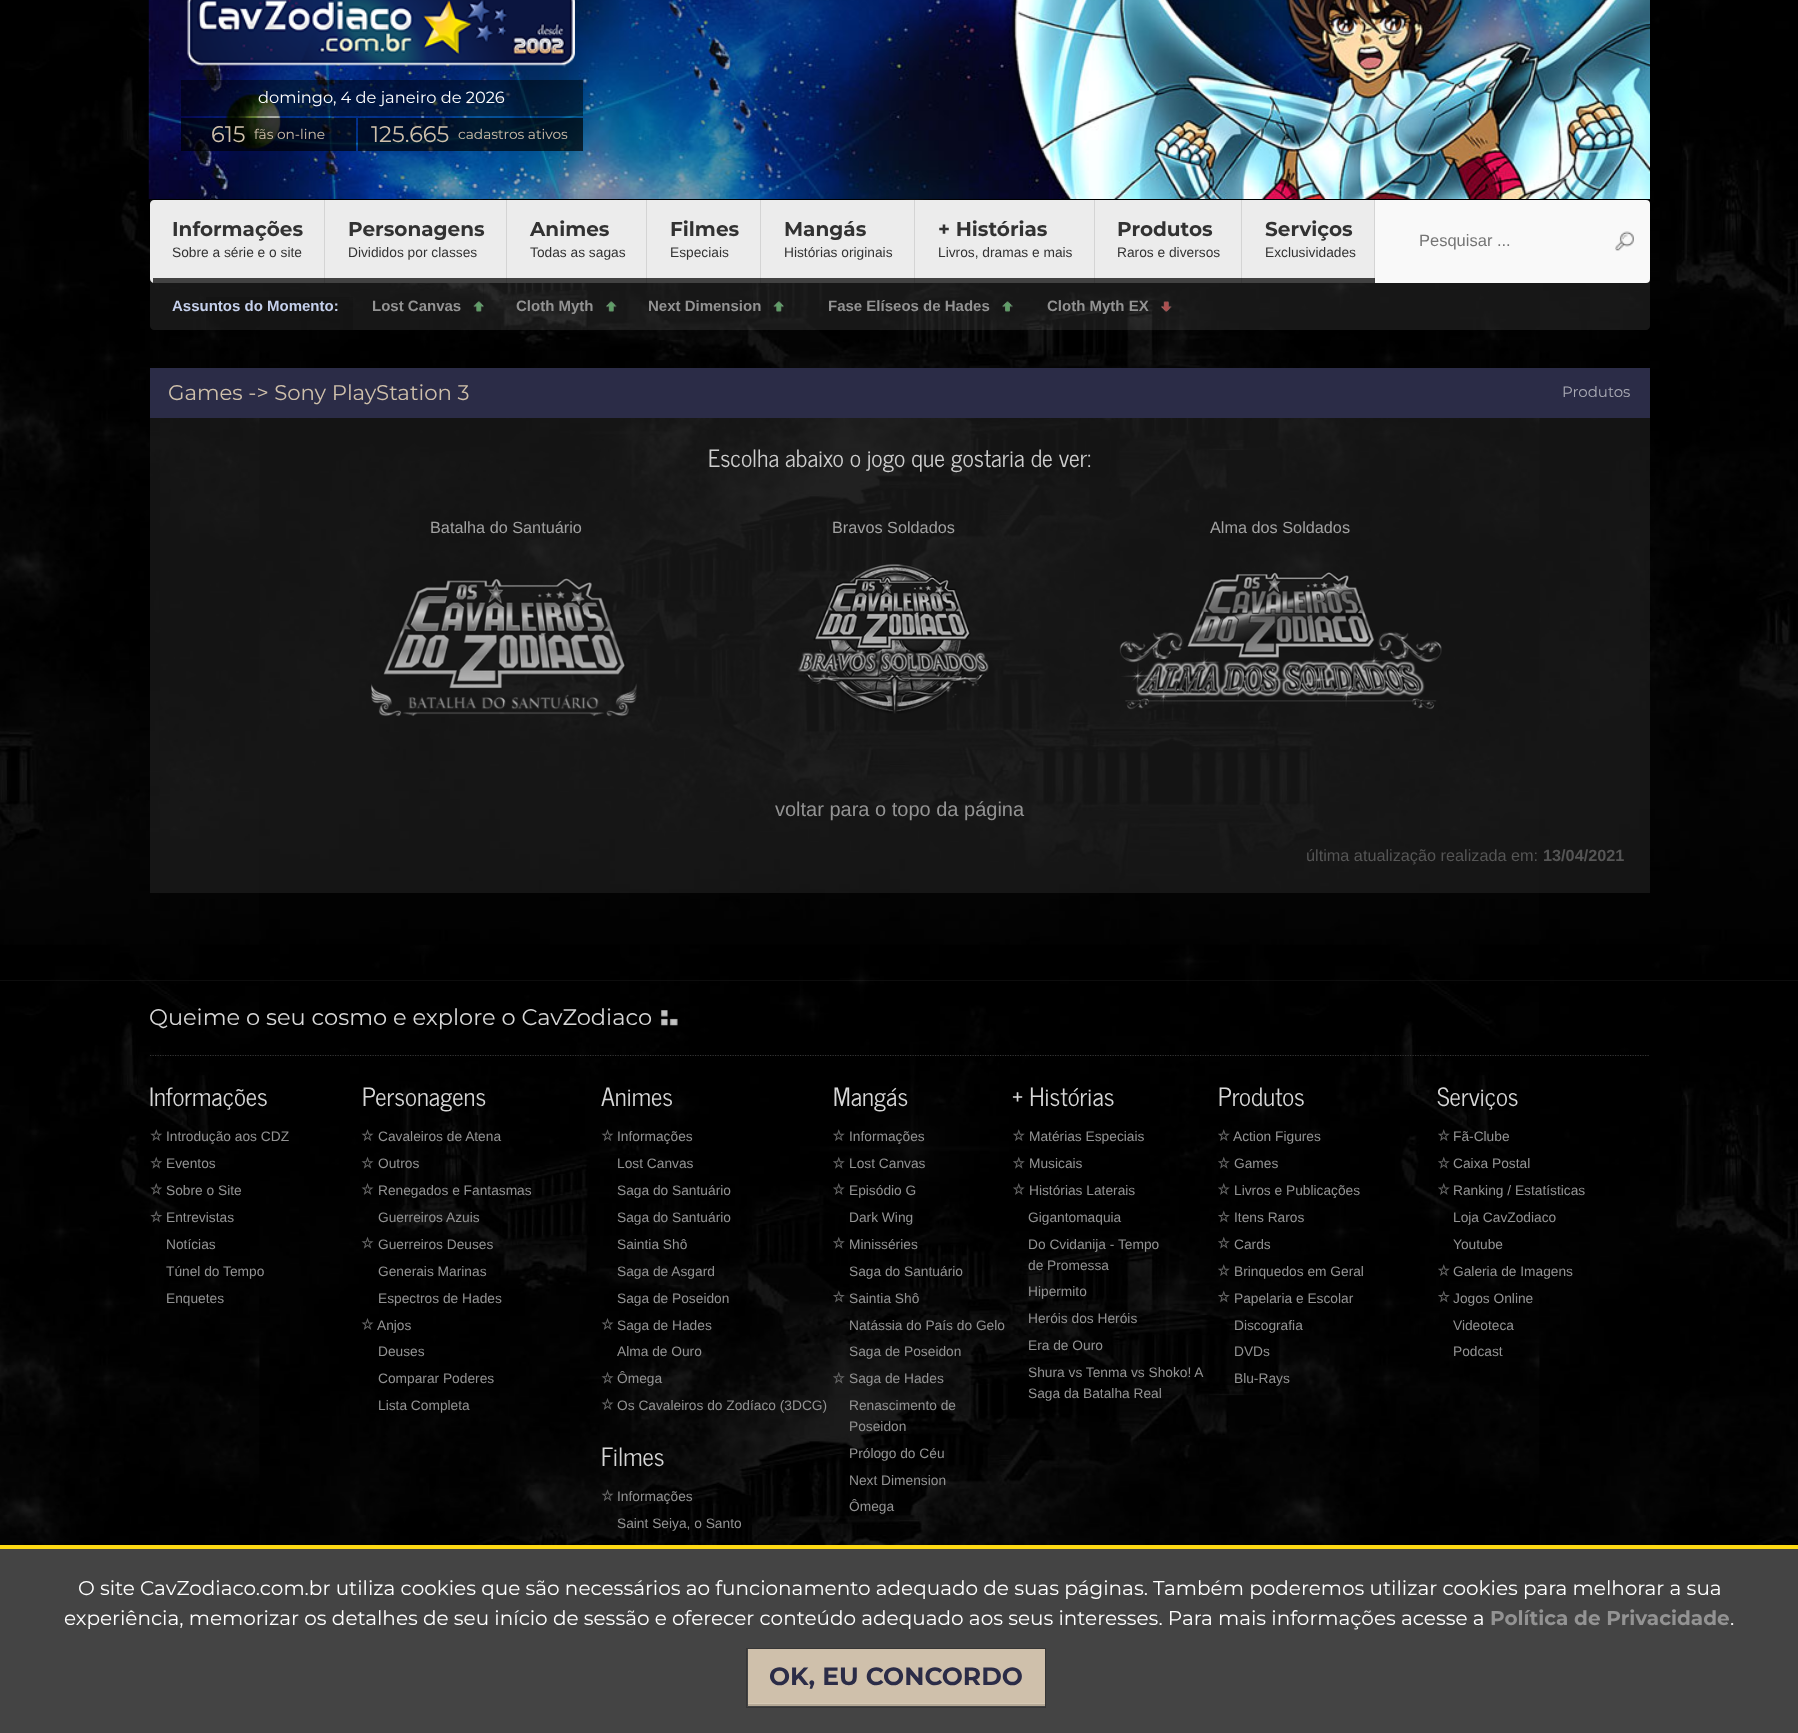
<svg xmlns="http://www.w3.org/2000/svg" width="1798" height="1733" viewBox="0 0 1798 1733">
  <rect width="100%" height="100%" fill="#ffffff"/>
  <image x="0" y="0" width="1798" height="1545" href="img1.png"/>
  <image x="148" y="0" width="1502" height="199" href="img2.png"/>
  <image x="187" y="0" width="388" height="66" href="img3.png"/>
  <rect x="181" y="80" width="402" height="36" fill="#000000" fill-opacity="0.5"/>
  <text x="258" y="103" font-family="Montserrat" font-size="16.25" fill="#ffffff">domingo, 4 de janeiro de 2026</text>
  <rect x="181" y="118" width="175" height="33" fill="#000000" fill-opacity="0.7"/>
  <text x="211" y="142" font-family="Montserrat" font-size="22.5" fill="#cfc0ab">615</text>
  <text x="254" y="139" font-family="Montserrat" font-size="13.75" fill="#cfc0ab">fãs on-line</text>
  <rect x="358" y="118" width="225" height="33" fill="#000000" fill-opacity="0.7"/>
  <text x="371" y="142" font-family="Montserrat" font-size="22.5" fill="#cfc0ab">125.665</text>
  <text x="458" y="139" font-family="Montserrat" font-size="13.75" fill="#cfc0ab">cadastros ativos</text>
  <path d="M150 270H1650V326C1650 328 1648 330 1646 330H154C152 330 150 328 150 326Z" fill="#ffffff" fill-opacity="0.09"/>
  <rect x="150" y="200" width="1500" height="83" rx="4" fill="#f9f9f9"/>
  <rect x="150" y="200" width="4" height="83" fill="#161616"/>
  <path d="M154 200H325V283H154C152 283 150 281 150 279V204C150 202 152 200 154 200Z" fill="#ececec"/>
  <rect x="153" y="278" width="172" height="5" fill="#424242"/>
  <text x="172" y="236" font-family="Montserrat" font-size="20" font-weight="bold" fill="#323232">Informações</text>
  <text x="172" y="257" font-family="Liberation Sans" font-size="13.75" fill="#323232">Sobre a série e o site</text>
  <rect x="324" y="200" width="1" height="83" fill="#000000" fill-opacity="0.1"/>
  <rect x="325" y="200" width="1050" height="78" fill="#ececec"/>
  <rect x="325" y="278" width="1050" height="5" fill="#424242"/>
  <text x="348" y="236" font-family="Montserrat" font-size="20" font-weight="bold" fill="#323232">Personagens</text>
  <text x="348" y="257" font-family="Liberation Sans" font-size="13.75" fill="#323232">Divididos por classes</text>
  <rect x="506" y="200" width="1" height="83" fill="#000000" fill-opacity="0.1"/>
  <text x="530" y="236" font-family="Montserrat" font-size="20" font-weight="bold" fill="#323232">Animes</text>
  <text x="530" y="257" font-family="Liberation Sans" font-size="13.75" fill="#323232">Todas as sagas</text>
  <rect x="646" y="200" width="1" height="83" fill="#000000" fill-opacity="0.1"/>
  <text x="670" y="236" font-family="Montserrat" font-size="20" font-weight="bold" fill="#323232">Filmes</text>
  <text x="670" y="257" font-family="Liberation Sans" font-size="13.75" fill="#323232">Especiais</text>
  <rect x="760" y="200" width="1" height="83" fill="#000000" fill-opacity="0.1"/>
  <text x="784" y="236" font-family="Montserrat" font-size="20" font-weight="bold" fill="#323232">Mangás</text>
  <text x="784" y="257" font-family="Liberation Sans" font-size="13.75" fill="#323232">Histórias originais</text>
  <rect x="914" y="200" width="1" height="83" fill="#000000" fill-opacity="0.1"/>
  <text x="938" y="236" font-family="Montserrat" font-size="20" font-weight="bold" fill="#323232">+ Histórias</text>
  <text x="938" y="257" font-family="Liberation Sans" font-size="13.75" fill="#323232">Livros, dramas e mais</text>
  <rect x="1094" y="200" width="1" height="83" fill="#000000" fill-opacity="0.1"/>
  <text x="1117" y="236" font-family="Montserrat" font-size="20" font-weight="bold" fill="#323232">Produtos</text>
  <text x="1117" y="257" font-family="Liberation Sans" font-size="13.75" fill="#323232">Raros e diversos</text>
  <rect x="1241" y="200" width="1" height="83" fill="#000000" fill-opacity="0.1"/>
  <text x="1265" y="236" font-family="Montserrat" font-size="20" font-weight="bold" fill="#323232">Serviços</text>
  <text x="1265" y="257" font-family="Liberation Sans" font-size="13.75" fill="#323232">Exclusividades</text>
  <rect x="1374" y="200" width="1" height="83" fill="#000000" fill-opacity="0.1"/>
  <text x="1419" y="246" font-family="Liberation Sans" font-size="16.5" fill="#757575">Pesquisar ...</text>
  <image x="1615" y="231" width="19" height="20" href="img4.png"/>
  <rect x="206" y="297" width="147" height="33" fill="#000000" fill-opacity="0.1"/>
  <text x="172" y="311" font-family="Liberation Sans" font-size="15" font-weight="bold" fill="#c5d0ec">Assuntos do Momento:</text>
  <text x="372" y="311" font-family="Liberation Sans" font-size="15" font-weight="bold" fill="#939393">Lost Canvas</text>
  <image x="473" y="301" width="11" height="11" href="img5.png"/>
  <rect x="483" y="283" width="1" height="24" fill="#141414" fill-opacity="0.2"/>
  <text x="516" y="311" font-family="Liberation Sans" font-size="15" font-weight="bold" fill="#939393">Cloth Myth</text>
  <image x="606" y="301" width="11" height="11" href="img6.png"/>
  <rect x="615" y="304" width="1" height="3" fill="#141414" fill-opacity="0.2"/>
  <text x="648" y="311" font-family="Liberation Sans" font-size="15" font-weight="bold" fill="#939393">Next Dimension</text>
  <image x="773" y="301" width="11" height="11" href="img7.png"/>
  <rect x="783" y="305" width="1" height="2" fill="#141414" fill-opacity="0.2"/>
  <text x="828" y="311" font-family="Liberation Sans" font-size="15" font-weight="bold" fill="#939393">Fase Elíseos de Hades</text>
  <image x="1002" y="301" width="11" height="11" href="img8.png"/>
  <rect x="1011" y="304" width="1" height="3" fill="#141414" fill-opacity="0.2"/>
  <text x="1047" y="311" font-family="Liberation Sans" font-size="15" font-weight="bold" fill="#939393">Cloth Myth EX</text>
  <image x="1161" y="301" width="11" height="11" href="img9.png"/>
  <rect x="1170" y="305" width="1" height="4" fill="#141414" fill-opacity="0.2"/>
  <rect x="150" y="368" width="1500" height="50" fill="#2b2c47"/>
  <text x="168" y="400" font-family="Montserrat" font-size="21.25" fill="#cfc0ab">Games -&gt; Sony PlayStation 3</text>
  <text x="1562" y="397" font-family="Montserrat" font-size="15" fill="#aaabb5">Produtos</text>
  <rect x="150" y="418" width="1500" height="475" fill="#272727" fill-opacity="0.5"/>
  <text x="708" y="467" font-family="News Cycle" font-size="23.75" fill="#cecece">Escolha abaixo o jogo que gostaria de ver:</text>
  <text x="430" y="533" font-family="Liberation Sans" font-size="16.25" fill="#a1a1a1">Batalha do Santuário</text>
  <image x="371" y="577" width="266" height="140" href="img10.png"/>
  <text x="832" y="533" font-family="Liberation Sans" font-size="16.25" fill="#a1a1a1">Bravos Soldados</text>
  <image x="797" y="564" width="192" height="150" href="img11.png"/>
  <text x="1210" y="533" font-family="Liberation Sans" font-size="16.25" fill="#a1a1a1">Alma dos Soldados</text>
  <image x="1119" y="571" width="323" height="139" href="img12.png"/>
  <text x="775" y="816" font-family="Liberation Sans" font-size="20" fill="#939393">voltar para o topo da página</text>
  <text x="1306" y="861" font-family="Liberation Sans" font-size="16.25" fill="#555555">última atualização realizada em:</text>
  <text x="1543" y="861" font-family="Liberation Sans" font-size="16.25" font-weight="bold" fill="#555555">13/04/2021</text>
  <rect x="0" y="980" width="1798" height="1" fill="#ffffff" fill-opacity="0.05"/>
  <image x="661" y="1010" width="17" height="16" href="img13.png"/>
  <text x="149" y="1025" font-family="Montserrat" font-size="22.5" fill="#d7d7d7">Queime o seu cosmo e explore o CavZodiaco</text>
  <path d="M150 1055.5H1650" fill="none" stroke="#353535" stroke-width="1.2" stroke-dasharray="1.25 1.25"/>
  <text x="149" y="1106" font-family="News Cycle" font-size="25" fill="#d7d7d7">Informações</text>
  <image x="150" y="1129" width="13" height="12" href="img14.png"/>
  <text x="166" y="1141" font-family="Liberation Sans" font-size="13.75" fill="#939393">Introdução aos CDZ</text>
  <image x="150" y="1156" width="12" height="13" href="img15.png"/>
  <text x="166" y="1168" font-family="Liberation Sans" font-size="13.75" fill="#939393">Eventos</text>
  <image x="150" y="1183" width="12" height="12" href="img16.png"/>
  <text x="166" y="1195" font-family="Liberation Sans" font-size="13.75" fill="#939393">Sobre o Site</text>
  <image x="150" y="1210" width="13" height="13" href="img17.png"/>
  <text x="166" y="1222" font-family="Liberation Sans" font-size="13.75" fill="#939393">Entrevistas</text>
  <text x="166" y="1249" font-family="Liberation Sans" font-size="13.75" fill="#939393">Notícias</text>
  <text x="166" y="1276" font-family="Liberation Sans" font-size="13.75" fill="#939393">Túnel do Tempo</text>
  <text x="166" y="1303" font-family="Liberation Sans" font-size="13.75" fill="#939393">Enquetes</text>
  <text x="362" y="1106" font-family="News Cycle" font-size="25" fill="#d7d7d7">Personagens</text>
  <image x="361" y="1129" width="13" height="12" href="img18.png"/>
  <text x="378" y="1141" font-family="Liberation Sans" font-size="13.75" fill="#939393">Cavaleiros de Atena</text>
  <image x="361" y="1156" width="13" height="13" href="img19.png"/>
  <text x="378" y="1168" font-family="Liberation Sans" font-size="13.75" fill="#939393">Outros</text>
  <image x="361" y="1183" width="13" height="12" href="img20.png"/>
  <text x="378" y="1195" font-family="Liberation Sans" font-size="13.75" fill="#939393">Renegados e Fantasmas</text>
  <text x="378" y="1222" font-family="Liberation Sans" font-size="13.75" fill="#939393">Guerreiros Azuis</text>
  <image x="361" y="1236" width="13" height="13" href="img21.png"/>
  <text x="378" y="1249" font-family="Liberation Sans" font-size="13.75" fill="#939393">Guerreiros Deuses</text>
  <text x="378" y="1276" font-family="Liberation Sans" font-size="13.75" fill="#939393">Generais Marinas</text>
  <text x="378" y="1303" font-family="Liberation Sans" font-size="13.75" fill="#939393">Espectros de Hades</text>
  <image x="361" y="1318" width="13" height="12" href="img22.png"/>
  <text x="377" y="1330" font-family="Liberation Sans" font-size="13.75" fill="#939393">Anjos</text>
  <text x="378" y="1356" font-family="Liberation Sans" font-size="13.75" fill="#939393">Deuses</text>
  <text x="378" y="1383" font-family="Liberation Sans" font-size="13.75" fill="#939393">Comparar Poderes</text>
  <text x="378" y="1410" font-family="Liberation Sans" font-size="13.75" fill="#939393">Lista Completa</text>
  <text x="601" y="1106" font-family="News Cycle" font-size="25" fill="#d7d7d7">Animes</text>
  <image x="601" y="1129" width="13" height="12" href="img23.png"/>
  <text x="617" y="1141" font-family="Liberation Sans" font-size="13.75" fill="#939393">Informações</text>
  <text x="617" y="1168" font-family="Liberation Sans" font-size="13.75" fill="#939393">Lost Canvas</text>
  <text x="617" y="1195" font-family="Liberation Sans" font-size="13.75" fill="#939393">Saga do Santuário</text>
  <text x="617" y="1222" font-family="Liberation Sans" font-size="13.75" fill="#939393">Saga do Santuário</text>
  <text x="617" y="1249" font-family="Liberation Sans" font-size="13.75" fill="#939393">Saintia Shô</text>
  <text x="617" y="1276" font-family="Liberation Sans" font-size="13.75" fill="#939393">Saga de Asgard</text>
  <text x="617" y="1303" font-family="Liberation Sans" font-size="13.75" fill="#939393">Saga de Poseidon</text>
  <image x="601" y="1318" width="13" height="12" href="img24.png"/>
  <text x="617" y="1330" font-family="Liberation Sans" font-size="13.75" fill="#939393">Saga de Hades</text>
  <text x="617" y="1356" font-family="Liberation Sans" font-size="13.75" fill="#939393">Alma de Ouro</text>
  <image x="601" y="1371" width="13" height="13" href="img25.png"/>
  <text x="617" y="1383" font-family="Liberation Sans" font-size="13.75" fill="#939393">Ômega</text>
  <image x="601" y="1398" width="13" height="12" href="img26.png"/>
  <text x="617" y="1410" font-family="Liberation Sans" font-size="13.75" fill="#939393">Os Cavaleiros do Zodíaco (3DCG)</text>
  <text x="601" y="1466" font-family="News Cycle" font-size="25" fill="#d7d7d7">Filmes</text>
  <image x="601" y="1489" width="13" height="12" href="img27.png"/>
  <text x="617" y="1501" font-family="Liberation Sans" font-size="13.75" fill="#939393">Informações</text>
  <text x="617" y="1528" font-family="Liberation Sans" font-size="13.75" fill="#939393">Saint Seiya, o Santo</text>
  <text x="833" y="1106" font-family="News Cycle" font-size="25" fill="#d7d7d7">Mangás</text>
  <image x="833" y="1129" width="12" height="12" href="img28.png"/>
  <text x="849" y="1141" font-family="Liberation Sans" font-size="13.75" fill="#939393">Informações</text>
  <image x="833" y="1156" width="12" height="13" href="img29.png"/>
  <text x="849" y="1168" font-family="Liberation Sans" font-size="13.75" fill="#939393">Lost Canvas</text>
  <image x="833" y="1183" width="12" height="12" href="img30.png"/>
  <text x="849" y="1195" font-family="Liberation Sans" font-size="13.75" fill="#939393">Episódio G</text>
  <text x="849" y="1222" font-family="Liberation Sans" font-size="13.75" fill="#939393">Dark Wing</text>
  <image x="833" y="1236" width="12" height="13" href="img31.png"/>
  <text x="849" y="1249" font-family="Liberation Sans" font-size="13.75" fill="#939393">Minisséries</text>
  <text x="849" y="1276" font-family="Liberation Sans" font-size="13.75" fill="#939393">Saga do Santuário</text>
  <image x="833" y="1290" width="12" height="13" href="img32.png"/>
  <text x="849" y="1303" font-family="Liberation Sans" font-size="13.75" fill="#939393">Saintia Shô</text>
  <text x="849" y="1330" font-family="Liberation Sans" font-size="13.75" fill="#939393">Natássia do País do Gelo</text>
  <text x="849" y="1356" font-family="Liberation Sans" font-size="13.75" fill="#939393">Saga de Poseidon</text>
  <image x="833" y="1372" width="12" height="12" href="img33.png"/>
  <text x="849" y="1383" font-family="Liberation Sans" font-size="13.75" fill="#939393">Saga de Hades</text>
  <text x="849" y="1410" font-family="Liberation Sans" font-size="13.75" fill="#939393">Renascimento de</text>
  <text x="849" y="1431" font-family="Liberation Sans" font-size="13.75" fill="#939393">Poseidon</text>
  <text x="849" y="1458" font-family="Liberation Sans" font-size="13.75" fill="#939393">Prólogo do Céu</text>
  <text x="849" y="1485" font-family="Liberation Sans" font-size="13.75" fill="#939393">Next Dimension</text>
  <text x="849" y="1511" font-family="Liberation Sans" font-size="13.75" fill="#939393">Ômega</text>
  <text x="1012" y="1106" font-family="News Cycle" font-size="25" fill="#d7d7d7">+ Histórias</text>
  <image x="1013" y="1129" width="12" height="12" href="img28.png"/>
  <text x="1029" y="1141" font-family="Liberation Sans" font-size="13.75" fill="#939393">Matérias Especiais</text>
  <image x="1013" y="1156" width="12" height="13" href="img34.png"/>
  <text x="1029" y="1168" font-family="Liberation Sans" font-size="13.75" fill="#939393">Musicais</text>
  <image x="1013" y="1183" width="12" height="12" href="img35.png"/>
  <text x="1029" y="1195" font-family="Liberation Sans" font-size="13.75" fill="#939393">Histórias Laterais</text>
  <text x="1028" y="1222" font-family="Liberation Sans" font-size="13.75" fill="#939393">Gigantomaquia</text>
  <text x="1028" y="1249" font-family="Liberation Sans" font-size="13.75" fill="#939393">Do Cvidanija - Tempo</text>
  <text x="1028" y="1270" font-family="Liberation Sans" font-size="13.75" fill="#939393">de Promessa</text>
  <text x="1028" y="1296" font-family="Liberation Sans" font-size="13.75" fill="#939393">Hipermito</text>
  <text x="1028" y="1323" font-family="Liberation Sans" font-size="13.75" fill="#939393">Heróis dos Heróis</text>
  <text x="1028" y="1350" font-family="Liberation Sans" font-size="13.75" fill="#939393">Era de Ouro</text>
  <text x="1028" y="1377" font-family="Liberation Sans" font-size="13.75" fill="#939393">Shura vs Tenma vs Shoko! A</text>
  <text x="1028" y="1398" font-family="Liberation Sans" font-size="13.75" fill="#939393">Saga da Batalha Real</text>
  <text x="1218" y="1106" font-family="News Cycle" font-size="25" fill="#d7d7d7">Produtos</text>
  <image x="1218" y="1129" width="12" height="12" href="img36.png"/>
  <text x="1233" y="1141" font-family="Liberation Sans" font-size="13.75" fill="#939393">Action Figures</text>
  <image x="1218" y="1156" width="12" height="13" href="img37.png"/>
  <text x="1234" y="1168" font-family="Liberation Sans" font-size="13.75" fill="#939393">Games</text>
  <image x="1218" y="1183" width="12" height="12" href="img38.png"/>
  <text x="1234" y="1195" font-family="Liberation Sans" font-size="13.75" fill="#939393">Livros e Publicações</text>
  <image x="1218" y="1210" width="12" height="13" href="img39.png"/>
  <text x="1234" y="1222" font-family="Liberation Sans" font-size="13.75" fill="#939393">Itens Raros</text>
  <image x="1218" y="1236" width="12" height="13" href="img40.png"/>
  <text x="1234" y="1249" font-family="Liberation Sans" font-size="13.75" fill="#939393">Cards</text>
  <image x="1218" y="1264" width="12" height="12" href="img41.png"/>
  <text x="1234" y="1276" font-family="Liberation Sans" font-size="13.75" fill="#939393">Brinquedos em Geral</text>
  <image x="1218" y="1290" width="12" height="13" href="img42.png"/>
  <text x="1234" y="1303" font-family="Liberation Sans" font-size="13.75" fill="#939393">Papelaria e Escolar</text>
  <text x="1234" y="1330" font-family="Liberation Sans" font-size="13.75" fill="#939393">Discografia</text>
  <text x="1234" y="1356" font-family="Liberation Sans" font-size="13.75" fill="#939393">DVDs</text>
  <text x="1234" y="1383" font-family="Liberation Sans" font-size="13.75" fill="#939393">Blu-Rays</text>
  <text x="1437" y="1106" font-family="News Cycle" font-size="25" fill="#d7d7d7">Serviços</text>
  <image x="1438" y="1129" width="12" height="12" href="img28.png"/>
  <text x="1453" y="1141" font-family="Liberation Sans" font-size="13.75" fill="#939393">Fã-Clube</text>
  <image x="1438" y="1156" width="12" height="13" href="img34.png"/>
  <text x="1453" y="1168" font-family="Liberation Sans" font-size="13.75" fill="#939393">Caixa Postal</text>
  <image x="1438" y="1183" width="12" height="12" href="img43.png"/>
  <text x="1453" y="1195" font-family="Liberation Sans" font-size="13.75" fill="#939393">Ranking / Estatísticas</text>
  <text x="1453" y="1222" font-family="Liberation Sans" font-size="13.75" fill="#939393">Loja CavZodiaco</text>
  <text x="1453" y="1249" font-family="Liberation Sans" font-size="13.75" fill="#939393">Youtube</text>
  <image x="1438" y="1264" width="12" height="12" href="img44.png"/>
  <text x="1453" y="1276" font-family="Liberation Sans" font-size="13.75" fill="#939393">Galeria de Imagens</text>
  <image x="1438" y="1290" width="12" height="13" href="img45.png"/>
  <text x="1453" y="1303" font-family="Liberation Sans" font-size="13.75" fill="#939393">Jogos Online</text>
  <text x="1453" y="1330" font-family="Liberation Sans" font-size="13.75" fill="#939393">Videoteca</text>
  <text x="1453" y="1356" font-family="Liberation Sans" font-size="13.75" fill="#939393">Podcast</text>
  <rect x="0" y="1549" width="1798" height="184" fill="#444444"/>
  <rect x="0" y="1545" width="1798" height="4" fill="#feda14"/>
  <text x="78" y="1595" font-family="Montserrat" font-size="20" fill="#ffffff">O site CavZodiaco.com.br utiliza cookies que são necessários ao funcionamento adequado de suas páginas. Também poderemos utilizar cookies para melhorar a sua</text>
  <text x="64" y="1625" font-family="Montserrat" font-size="20" fill="#ffffff">experiência, memorizar os detalhes de seu início de sessão e oferecer conteúdo adequado aos seus interesses. Para mais informações acesse a</text>
  <text x="1490" y="1625" font-family="Montserrat" font-size="20" font-weight="bold" fill="#939393">Política de Privacidade</text>
  <text x="1730" y="1625" font-family="Montserrat" font-size="20" fill="#ffffff">.</text>
  <rect x="746.5" y="1648.5" width="299" height="59" fill="none" stroke="#363636"/>
  <rect x="748" y="1649" width="297" height="54" fill="#cfc0ab"/>
  <text x="769" y="1685" font-family="Montserrat" font-size="25" font-weight="bold" fill="#2b2c47">OK, EU CONCORDO</text>
  <rect x="748" y="1704" width="297" height="2" fill="#b6a996"/>
  <rect x="748" y="1703" width="297" height="1" fill="#d5c8b5"/>
</svg>
